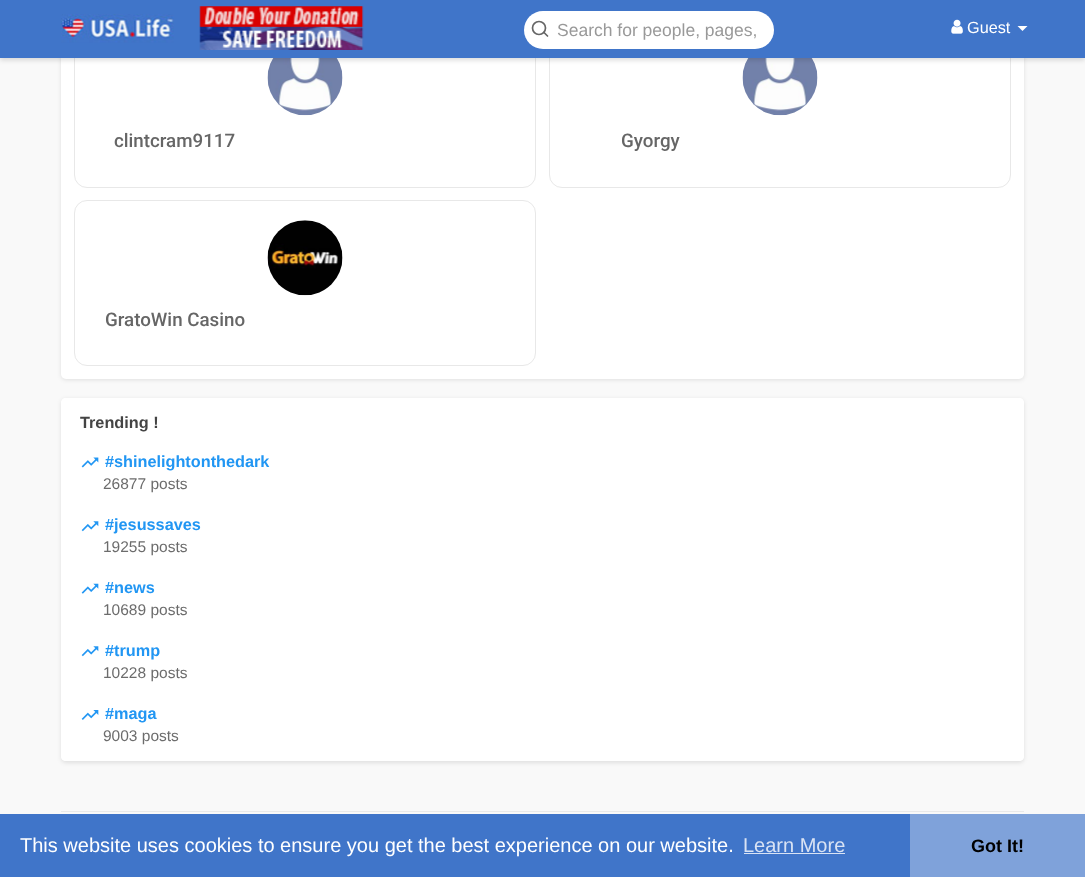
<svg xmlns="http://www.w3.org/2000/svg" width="1085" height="877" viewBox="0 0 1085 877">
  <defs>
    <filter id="blur1" x="-50%" y="-200%" width="200%" height="500%"><feGaussianBlur stdDeviation="2"/></filter>
    <filter id="blur2" x="-50%" y="-200%" width="200%" height="500%"><feGaussianBlur stdDeviation="2.5"/></filter>
  </defs>
  <rect width="100%" height="100%" fill="#f9f9f9"/>
  <rect x="61" y="-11" width="963" height="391" rx="5" fill="#000000" fill-opacity="0.1" filter="url(#blur1)"/>
  <rect x="61" y="-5" width="963" height="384" rx="5" fill="#ffffff"/>
  <rect x="74.5" y="20.5" width="461" height="167" rx="12.5" fill="none" stroke="#e8e8e8"/>
  <image x="267" y="58" width="76" height="58" href="img4.png"/>
  <rect x="549.5" y="20.5" width="461" height="167" rx="12.5" fill="none" stroke="#e8e8e8"/>
  <image x="742" y="58" width="76" height="58" href="img5.png"/>
  <rect x="0" y="3" width="1085" height="57" fill="#000000" fill-opacity="0.15" filter="url(#blur2)"/>
  <rect x="0" y="0" width="1085" height="58" fill="#4075c9"/>
  <image x="61" y="14" width="113" height="29" href="img1.png"/>
  <image x="199" y="6" width="165" height="44" href="img2.png"/>
  <rect x="524" y="11" width="250" height="38" rx="19" fill="#ffffff"/>
  <circle cx="539" cy="28" r="6.5" fill="none" stroke="#666666" stroke-width="1.7"/>
  <path d="M547.5 36L544 32.5" fill="none" stroke="#666666" stroke-width="1.7" stroke-linecap="round" stroke-linejoin="round"/>
  <text x="557" y="36" font-family="Liberation Sans" font-size="17.5" fill="#999999">Search for people, pages,</text>
  <image x="951" y="19" width="12" height="15" href="img3.png"/>
  <text x="967" y="33" font-family="Liberation Sans" font-size="16.25" fill="#ffffff">Guest</text>
  <path d="M1017.5 26H1027.5L1022.5 31Z" fill="#ffffff"/>
  <text x="114" y="147" font-family="Roboto" font-size="18.75" font-weight="500" fill="#666666">clintcram9117</text>
  <text x="621" y="147" font-family="Roboto" font-size="18.75" font-weight="500" fill="#666666">Gyorgy</text>
  <rect x="74.5" y="200.5" width="461" height="165" rx="12.5" fill="none" stroke="#e8e8e8"/>
  <image x="267" y="220" width="76" height="76" href="img6.png"/>
  <text x="105" y="326" font-family="Roboto" font-size="18.75" font-weight="500" fill="#666666">GratoWin Casino</text>
  <rect x="61" y="399" width="963" height="364" rx="5" fill="#000000" fill-opacity="0.1" filter="url(#blur1)"/>
  <rect x="61" y="398" width="963" height="363" rx="5" fill="#ffffff"/>
  <path d="M66 398H1019C1022 398 1024 400 1024 403V446H61V403C61 400 63 398 66 398Z" fill="#ffffff"/>
  <text x="80" y="428" font-family="Liberation Sans" font-size="16.25" font-weight="bold" fill="#444444">Trending !</text>
  <image x="81" y="457" width="18" height="11" href="img7.png"/>
  <text x="105" y="467" font-family="Liberation Sans" font-size="16.25" font-weight="bold" fill="#2196f3">#shinelightonthedark</text>
  <text x="103" y="489" font-family="Liberation Sans" font-size="15.5" fill="#6c6c6c">26877 posts</text>
  <image x="81" y="521" width="18" height="11" href="img8.png"/>
  <text x="105" y="530" font-family="Liberation Sans" font-size="16.25" font-weight="bold" fill="#2196f3">#jesussaves</text>
  <text x="103" y="552" font-family="Liberation Sans" font-size="15.5" fill="#6c6c6c">19255 posts</text>
  <image x="81" y="583" width="18" height="11" href="img9.png"/>
  <text x="105" y="593" font-family="Liberation Sans" font-size="16.25" font-weight="bold" fill="#2196f3">#news</text>
  <text x="103" y="615" font-family="Liberation Sans" font-size="15.5" fill="#6c6c6c">10689 posts</text>
  <image x="81" y="646" width="18" height="11" href="img8.png"/>
  <text x="105" y="656" font-family="Liberation Sans" font-size="16.25" font-weight="bold" fill="#2196f3">#trump</text>
  <text x="103" y="678" font-family="Liberation Sans" font-size="15.5" fill="#6c6c6c">10228 posts</text>
  <path d="M61 699H1024V756C1024 759 1022 761 1019 761H66C63 761 61 759 61 756Z" fill="#ffffff"/>
  <image x="81" y="710" width="18" height="10" href="img10.png"/>
  <text x="105" y="719" font-family="Liberation Sans" font-size="16.25" font-weight="bold" fill="#2196f3">#maga</text>
  <text x="103" y="741" font-family="Liberation Sans" font-size="15.5" fill="#6c6c6c">9003 posts</text>
  <rect x="61" y="811" width="963" height="1" fill="#e9e9e9"/>
  <rect x="0" y="814" width="910" height="63" fill="#4075c9"/>
  <text x="20" y="852" font-family="Liberation Sans" font-size="20" fill="#ffffff">This website uses cookies to ensure you get the best experience on our website.</text>
  <text x="743" y="852" font-family="Liberation Sans" font-size="20" fill="#d9e3f4">Learn More</text>
  <rect x="744" y="853" width="101" height="1" fill="#d9e3f4"/>
  <rect x="910" y="814" width="175" height="63" fill="#7fa2da"/>
  <text x="971" y="852" font-family="Liberation Sans" font-size="18" font-weight="bold" fill="#000000">Got It!</text>
</svg>
